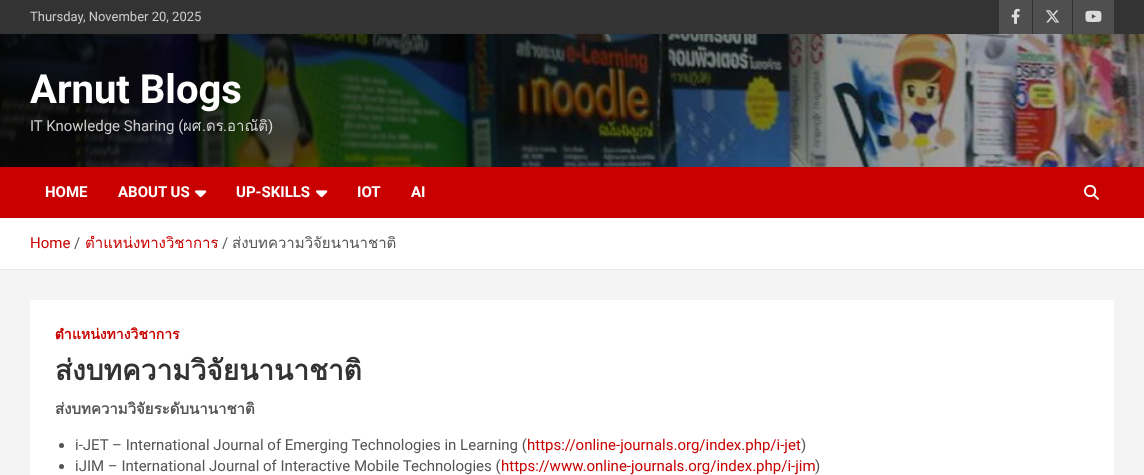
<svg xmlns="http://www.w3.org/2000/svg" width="1144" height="475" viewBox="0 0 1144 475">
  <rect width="100%" height="100%" fill="#f4f4f4"/>
  <rect x="0" y="0" width="1144" height="34" fill="#333333"/>
  <text x="30" y="21" font-family="Roboto" font-size="13" fill="#cccccc">Thursday, November 20, 2025</text>
  <rect x="999" y="0" width="33" height="34" fill="#4f4f4f"/>
  <image x="1011" y="8" width="9" height="16" href="img1.png"/>
  <rect x="1033" y="0" width="39" height="34" fill="#4f4f4f"/>
  <image x="1045" y="10" width="15" height="13" href="img2.png"/>
  <rect x="1073" y="0" width="41" height="34" fill="#4f4f4f"/>
  <image x="1085" y="10" width="17" height="12" href="img3.png"/>
  <image x="0" y="34" width="1144" height="133" href="img4.png"/>
  <text x="30" y="103" font-family="Roboto" font-size="40" font-weight="bold" fill="#ffffff">Arnut Blogs</text>
  <text x="30" y="131" font-family="Roboto" font-size="15" fill="#cccccc">IT Knowledge Sharing (</text>
  <text x="183" y="131" font-family="Loma" font-size="15" fill="#cccccc">ผศ</text>
  <text x="202" y="131" font-family="Roboto" font-size="15" fill="#d2d3d2">.</text>
  <text x="206" y="131" font-family="Loma" font-size="15" fill="#d2d3d2">ดร</text>
  <text x="223" y="131" font-family="Roboto" font-size="15" fill="#d2d3d2">.</text>
  <text x="227" y="131" font-family="Loma" font-size="15" fill="#d2d3d2">อาณัติ</text>
  <text x="268" y="131" font-family="Roboto" font-size="15" fill="#d8d8d6">)</text>
  <rect x="0" y="167" width="1144" height="51" fill="#c80000"/>
  <text x="45" y="197" font-family="Roboto" font-size="15" font-weight="bold" fill="#ffffff">HOME</text>
  <text x="118" y="197" font-family="Roboto" font-size="15" font-weight="bold" fill="#ffffff">ABOUT US</text>
  <image x="195" y="190" width="12" height="8" href="img5.png"/>
  <text x="236" y="197" font-family="Roboto" font-size="15" font-weight="bold" fill="#ffffff">UP-SKILLS</text>
  <image x="316" y="190" width="12" height="8" href="img5.png"/>
  <text x="357" y="197" font-family="Roboto" font-size="15" font-weight="bold" fill="#ffffff">IOT</text>
  <text x="411" y="197" font-family="Roboto" font-size="15" font-weight="bold" fill="#ffffff">AI</text>
  <image x="1084" y="184" width="15" height="16" href="img6.png"/>
  <rect x="0" y="218" width="1144" height="51" fill="#ffffff"/>
  <rect x="0" y="269" width="1144" height="1" fill="#e6e6e6"/>
  <text x="30" y="248" font-family="Roboto" font-size="15" fill="#c80000">Home</text>
  <text x="74" y="248" font-family="Roboto" font-size="15" fill="#555555">/</text>
  <text x="85" y="248" font-family="Loma" font-size="15" fill="#c80000">ตำแหน่งทางวิชาการ</text>
  <text x="222" y="248" font-family="Roboto" font-size="15" fill="#555555">/</text>
  <text x="232" y="248" font-family="Loma" font-size="15" fill="#555555">ส่งบทความวิจัยนานาชาติ</text>
  <rect x="30" y="300" width="1084" height="175" fill="#ffffff"/>
  <text x="55" y="339" font-family="Loma" font-size="14" font-weight="bold" fill="#c80000">ตำแหน่งทางวิชาการ</text>
  <text x="55" y="380" font-family="Loma" font-size="28" font-weight="bold" fill="#333333">ส่งบทความวิจัยนานาชาติ</text>
  <text x="55" y="414" font-family="Loma" font-size="15" font-weight="bold" fill="#555555">ส่งบทความวิจัยระดับนานาชาติ</text>
  <circle cx="61.5" cy="445.5" r="2.5" fill="#555555"/>
  <text x="75" y="450" font-family="Roboto" font-size="15" fill="#555555">i-JET – International Journal of Emerging Technologies in Learning (</text>
  <text x="527" y="450" font-family="Roboto" font-size="15" fill="#c80000">https://online-journals.org/index.php/i-jet</text>
  <text x="801" y="450" font-family="Roboto" font-size="15" fill="#555555">)</text>
  <circle cx="61.5" cy="466.5" r="2.5" fill="#555555"/>
  <text x="75" y="471" font-family="Roboto" font-size="15" fill="#555555">iJIM – International Journal of Interactive Mobile Technologies (</text>
  <text x="501" y="471" font-family="Roboto" font-size="15" fill="#c80000">https://www.online-journals.org/index.php/i-jim</text>
  <text x="815" y="471" font-family="Roboto" font-size="15" fill="#555555">)</text>
</svg>
